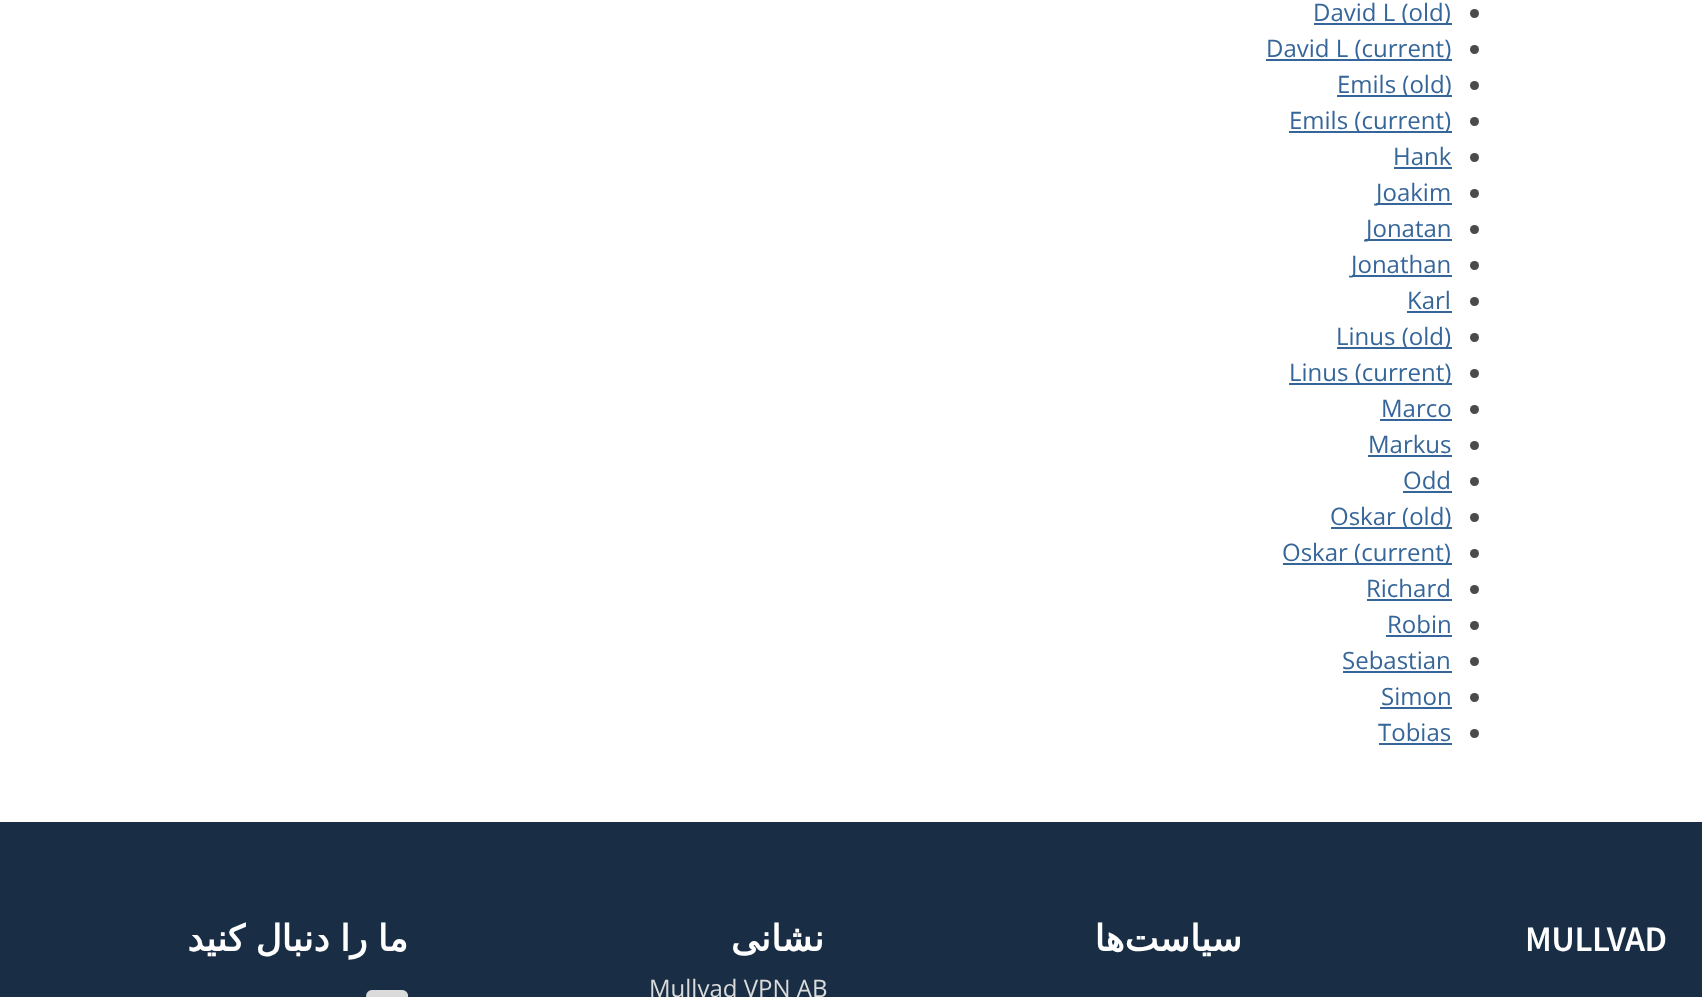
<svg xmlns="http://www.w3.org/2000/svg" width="1702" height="997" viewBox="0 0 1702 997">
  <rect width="100%" height="100%" fill="#192e45"/>
  <rect x="0" y="0" width="1702" height="822" fill="#ffffff"/>
  <rect x="1314" y="23" width="138" height="2" fill="#366699"/>
  <text x="1313" y="21" font-family="Open Sans" font-size="24" fill="#366699">David L (old)</text>
  <circle cx="1474.5" cy="13.5" r="4.5" fill="#4a4a4a"/>
  <rect x="1266" y="59" width="186" height="2" fill="#366699"/>
  <text x="1266" y="57" font-family="Open Sans" font-size="24" fill="#366699">David L (current)</text>
  <circle cx="1474.5" cy="49.5" r="4.5" fill="#4a4a4a"/>
  <rect x="1337" y="95" width="115" height="2" fill="#366699"/>
  <text x="1337" y="93" font-family="Open Sans" font-size="24" fill="#366699">Emils (old)</text>
  <circle cx="1474.5" cy="85.5" r="4.5" fill="#4a4a4a"/>
  <rect x="1289" y="131" width="163" height="2" fill="#366699"/>
  <text x="1289" y="129" font-family="Open Sans" font-size="24" fill="#366699">Emils (current)</text>
  <circle cx="1474.5" cy="121.5" r="4.5" fill="#4a4a4a"/>
  <text x="1393" y="165" font-family="Open Sans" font-size="24" fill="#366699">Hank</text>
  <rect x="1394" y="167" width="58" height="2" fill="#366699"/>
  <circle cx="1474.5" cy="157.5" r="4.5" fill="#4a4a4a"/>
  <rect x="1376" y="203" width="76" height="2" fill="#366699"/>
  <text x="1376" y="201" font-family="Open Sans" font-size="24" fill="#366699">Joakim</text>
  <circle cx="1474.5" cy="193.5" r="4.5" fill="#4a4a4a"/>
  <rect x="1365" y="239" width="87" height="2" fill="#366699"/>
  <text x="1366" y="237" font-family="Open Sans" font-size="24" fill="#366699">Jonatan</text>
  <circle cx="1474.5" cy="229.5" r="4.5" fill="#4a4a4a"/>
  <rect x="1352" y="275" width="100" height="2" fill="#366699"/>
  <text x="1351" y="273" font-family="Open Sans" font-size="24" fill="#366699">Jonathan</text>
  <circle cx="1474.5" cy="265.5" r="4.5" fill="#4a4a4a"/>
  <text x="1407" y="309" font-family="Open Sans" font-size="24" fill="#366699">Karl</text>
  <rect x="1407" y="311" width="45" height="2" fill="#366699"/>
  <circle cx="1474.5" cy="301.5" r="4.5" fill="#4a4a4a"/>
  <rect x="1337" y="347" width="115" height="2" fill="#366699"/>
  <text x="1336" y="345" font-family="Open Sans" font-size="24" fill="#366699">Linus (old)</text>
  <circle cx="1474.5" cy="337.5" r="4.5" fill="#4a4a4a"/>
  <rect x="1289" y="383" width="163" height="2" fill="#366699"/>
  <text x="1289" y="381" font-family="Open Sans" font-size="24" fill="#366699">Linus (current)</text>
  <circle cx="1474.5" cy="373.5" r="4.5" fill="#4a4a4a"/>
  <text x="1381" y="417" font-family="Open Sans" font-size="24" fill="#366699">Marco</text>
  <rect x="1380" y="419" width="72" height="2" fill="#366699"/>
  <circle cx="1474.5" cy="409.5" r="4.5" fill="#4a4a4a"/>
  <text x="1368" y="453" font-family="Open Sans" font-size="24" fill="#366699">Markus</text>
  <rect x="1368" y="455" width="84" height="2" fill="#366699"/>
  <circle cx="1474.5" cy="445.5" r="4.5" fill="#4a4a4a"/>
  <text x="1403" y="489" font-family="Open Sans" font-size="24" fill="#366699">Odd</text>
  <rect x="1403" y="491" width="49" height="2" fill="#366699"/>
  <circle cx="1474.5" cy="481.5" r="4.5" fill="#4a4a4a"/>
  <rect x="1331" y="527" width="121" height="2" fill="#366699"/>
  <text x="1330" y="525" font-family="Open Sans" font-size="24" fill="#366699">Oskar (old)</text>
  <circle cx="1474.5" cy="517.5" r="4.5" fill="#4a4a4a"/>
  <rect x="1283" y="563" width="169" height="2" fill="#366699"/>
  <text x="1282" y="561" font-family="Open Sans" font-size="24" fill="#366699">Oskar (current)</text>
  <circle cx="1474.5" cy="553.5" r="4.5" fill="#4a4a4a"/>
  <text x="1366" y="597" font-family="Open Sans" font-size="24" fill="#366699">Richard</text>
  <rect x="1367" y="599" width="85" height="2" fill="#366699"/>
  <circle cx="1474.5" cy="589.5" r="4.5" fill="#4a4a4a"/>
  <text x="1387" y="633" font-family="Open Sans" font-size="24" fill="#366699">Robin</text>
  <rect x="1386" y="635" width="66" height="2" fill="#366699"/>
  <circle cx="1474.5" cy="625.5" r="4.5" fill="#4a4a4a"/>
  <text x="1342" y="669" font-family="Open Sans" font-size="24" fill="#366699">Sebastian</text>
  <rect x="1343" y="671" width="109" height="2" fill="#366699"/>
  <circle cx="1474.5" cy="661.5" r="4.5" fill="#4a4a4a"/>
  <text x="1381" y="705" font-family="Open Sans" font-size="24" fill="#366699">Simon</text>
  <rect x="1380" y="707" width="72" height="2" fill="#366699"/>
  <circle cx="1474.5" cy="697.5" r="4.5" fill="#4a4a4a"/>
  <text x="1378" y="741" font-family="Open Sans" font-size="24" fill="#366699">Tobias</text>
  <rect x="1379" y="743" width="73" height="2" fill="#366699"/>
  <circle cx="1474.5" cy="733.5" r="4.5" fill="#4a4a4a"/>
  <text x="408" y="951" word-spacing="-1" font-family="DejaVu Sans" font-size="36" font-weight="bold" letter-spacing="-0.5" direction="rtl" fill="#ffffff">ما را دنبال کنید</text>
  <image x="366" y="990" width="42" height="7" href="img1.png"/>
  <text x="824" y="951" font-family="DejaVu Sans" font-size="36" font-weight="bold" letter-spacing="-0.5" direction="rtl" fill="#ffffff">نشانی</text>
  <text x="649" y="997" font-family="Open Sans" font-size="24" fill="#dbdbdb">Mullvad VPN AB</text>
  <text x="1242" y="951" font-family="DejaVu Sans" font-size="36" font-weight="bold" letter-spacing="-0.5" direction="rtl" fill="#ffffff">سیاست‌ها</text>
  <text x="1525" y="951" font-family="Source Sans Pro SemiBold" font-size="36" font-weight="600" letter-spacing="-0.5" fill="#ffffff">MULLVAD</text>
</svg>
